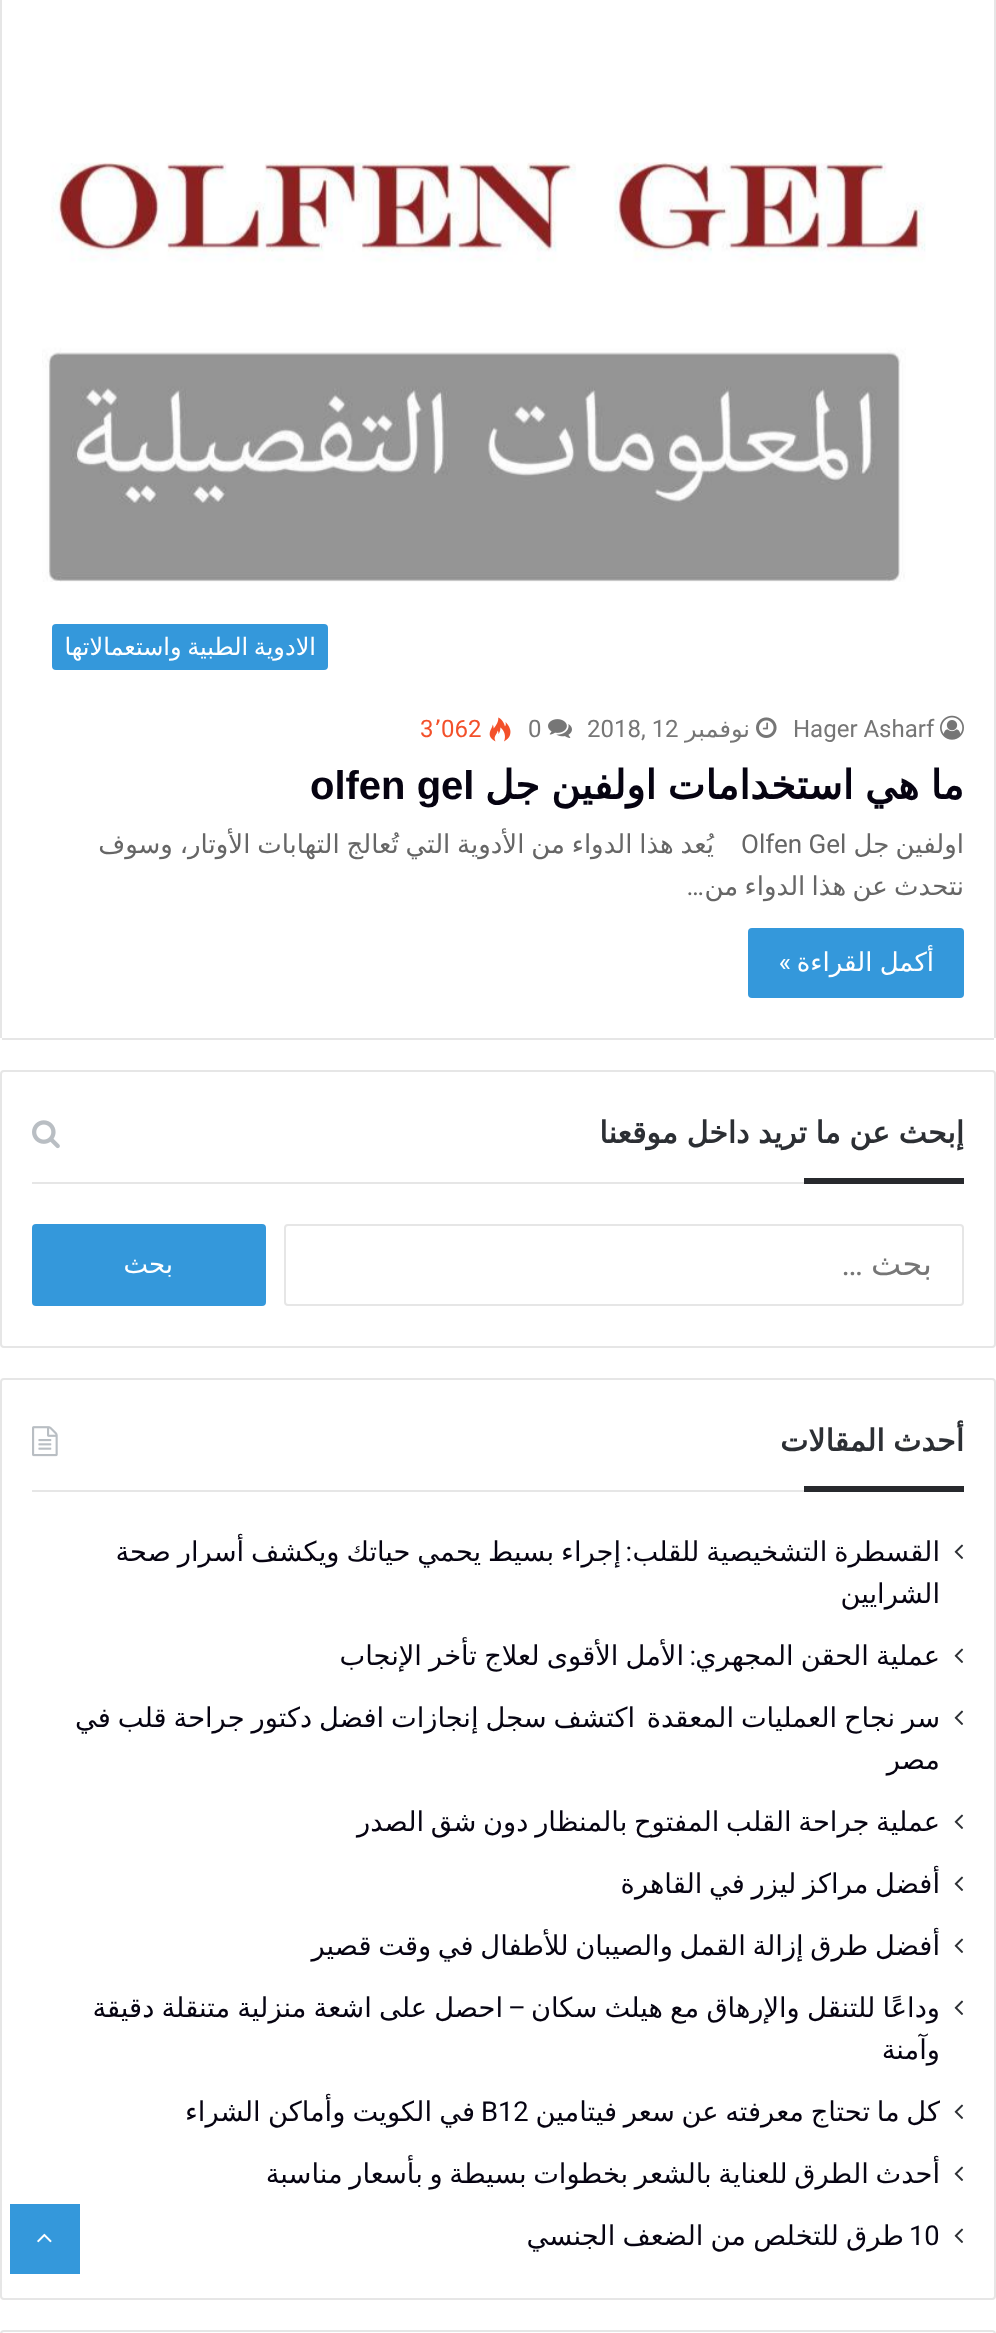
<svg xmlns="http://www.w3.org/2000/svg" width="996" height="2333" viewBox="0 0 996 2333">
  <rect width="100%" height="100%" fill="#ffffff"/>
  <rect x="994" y="0" width="2" height="1038" fill="#e6e6e6"/>
  <rect x="2" y="1038" width="992" height="2" fill="#e6e6e6"/>
  <rect x="0" y="0" width="2" height="1038" fill="#e6e6e6"/>
  <image x="42" y="162" width="884" height="420" href="img1.png"/>
  <rect x="52" y="624" width="276" height="46" rx="4" fill="#3498db"/>
  <text x="316" y="655" word-spacing="-2" font-family="DejaVu Sans" font-size="24" direction="rtl" fill="#ffffff">الادوية الطبية واستعمالاتها</text>
  <image x="940" y="715" width="24" height="25" href="img2.png"/>
  <text x="793" y="737" font-family="Roboto" font-size="24" fill="#767676">Hager Asharf</text>
  <image x="756" y="717" width="21" height="21" href="img3.png"/>
  <text x="750" y="737" font-family="DejaVu Sans" font-size="24" direction="rtl" fill="#767676">نوفمبر</text>
  <text x="587" y="737" font-family="Roboto" font-size="24" fill="#767676">2018, 12</text>
  <image x="548" y="719" width="24" height="19" href="img4.png"/>
  <text x="528" y="737" font-family="Roboto" font-size="24" fill="#767676">0</text>
  <image x="489" y="717" width="22" height="25" href="img5.png"/>
  <text x="441" y="737" font-family="Roboto" font-size="24" fill="#f3502a">062</text>
  <text x="434" y="737" font-family="DejaVu Sans" font-size="24" fill="#f3502a">٬</text>
  <text x="420" y="737" font-family="Roboto" font-size="24" fill="#f3502a">3</text>
  <text x="964" y="799" word-spacing="-1.5" font-family="DejaVu Sans" font-size="40" font-weight="bold" direction="rtl" fill="#060311">ما هي استخدامات اولفين جل</text>
  <text x="310" y="799" font-family="Liberation Sans" font-size="40" font-weight="bold" fill="#060311">olfen gel</text>
  <text x="964" y="853" word-spacing="-2" font-family="DejaVu Sans" font-size="26" direction="rtl" fill="#666666">اولفين جل</text>
  <text x="741" y="853" font-family="Roboto" font-size="26" fill="#666666">Olfen Gel</text>
  <text x="714" y="853" word-spacing="-1.5" font-family="DejaVu Sans" font-size="26" direction="rtl" fill="#666666">يُعد هذا الدواء من الأدوية التي تُعالج التهابات الأوتار، وسوف</text>
  <text x="964" y="895" word-spacing="-2" font-family="DejaVu Sans" font-size="26" direction="rtl" fill="#666666">نتحدث عن هذا الدواء من</text>
  <text x="704" y="895" font-family="Roboto" font-size="26" direction="rtl" fill="#666666">…</text>
  <rect x="748" y="928" width="216" height="70" rx="4" fill="#3498db"/>
  <text x="934" y="971" word-spacing="-1" font-family="DejaVu Sans" font-size="26" direction="rtl" fill="#ffffff">أكمل القراءة</text>
  <text x="791" y="971" font-family="Roboto" font-size="26" direction="rtl" fill="#ffffff">»</text>
  <rect x="1" y="1071" width="994" height="276" rx="3" fill="none" stroke="#e6e6e6" stroke-width="2"/>
  <rect x="32" y="1182" width="772" height="2" fill="#e6e6e6"/>
  <text x="964" y="1143" word-spacing="-1" font-family="DejaVu Sans" font-size="30" font-weight="bold" direction="rtl" fill="#2c2f34">إبحث عن ما تريد داخل موقعنا</text>
  <image x="32" y="1120" width="28" height="29" href="img6.png"/>
  <rect x="804" y="1178" width="160" height="6" fill="#27292d"/>
  <rect x="285" y="1225" width="678" height="80" rx="3" fill="none" stroke="#e6e6e6" stroke-width="2"/>
  <text x="932" y="1275" font-family="DejaVu Sans" font-size="32" direction="rtl" fill="#767676">بحث</text>
  <text x="863" y="1275" font-family="Roboto" font-size="32" direction="rtl" fill="#767676">…</text>
  <rect x="32" y="1224" width="234" height="82" rx="4" fill="#3498db"/>
  <text x="173" y="1273" font-family="DejaVu Sans" font-size="26" direction="rtl" fill="#ffffff">بحث</text>
  <rect x="1" y="1379" width="994" height="920" rx="3" fill="none" stroke="#e6e6e6" stroke-width="2"/>
  <rect x="32" y="1490" width="772" height="2" fill="#e6e6e6"/>
  <text x="964" y="1451" word-spacing="-1" font-family="DejaVu Sans" font-size="30" font-weight="bold" direction="rtl" fill="#2c2f34">أحدث المقالات</text>
  <image x="32" y="1426" width="26" height="31" href="img7.png"/>
  <rect x="804" y="1486" width="160" height="6" fill="#27292d"/>
  <image x="954" y="1544" width="10" height="15" href="img8.png"/>
  <text x="940" y="1561" word-spacing="-1.75" font-family="DejaVu Sans" font-size="27.3" direction="rtl" fill="#060311">القسطرة التشخيصية للقلب</text>
  <text x="621" y="1561" word-spacing="-1.75" font-family="DejaVu Sans" font-size="27.3" direction="rtl" fill="#060311">إجراء بسيط يحمي حياتك ويكشف أسرار صحة</text>
  <text x="632" y="1561" font-family="Roboto" font-size="27.3" direction="rtl" fill="#060311">:</text>
  <text x="940" y="1603" font-family="DejaVu Sans" font-size="27.3" direction="rtl" fill="#060311">الشرايين</text>
  <image x="954" y="1648" width="10" height="15" href="img8.png"/>
  <text x="940" y="1665" word-spacing="-1.5" font-family="DejaVu Sans" font-size="27.3" direction="rtl" fill="#060311">عملية الحقن المجهري</text>
  <text x="696" y="1665" font-family="Roboto" font-size="27.3" direction="rtl" fill="#060311">:</text>
  <text x="684" y="1665" word-spacing="-1.5" font-family="DejaVu Sans" font-size="27.3" direction="rtl" fill="#060311">الأمل الأقوى لعلاج تأخر الإنجاب</text>
  <image x="954" y="1710" width="10" height="15" href="img8.png"/>
  <text x="940" y="1727" word-spacing="-1.75" font-family="DejaVu Sans" font-size="27.3" direction="rtl" fill="#060311">سر نجاح العمليات المعقدة</text>
  <text x="635" y="1727" word-spacing="-1.75" font-family="DejaVu Sans" font-size="27.3" direction="rtl" fill="#060311">اكتشف سجل إنجازات افضل دكتور جراحة قلب في</text>
  <text x="940" y="1769" font-family="DejaVu Sans" font-size="27.3" direction="rtl" fill="#060311">مصر</text>
  <image x="954" y="1814" width="10" height="15" href="img8.png"/>
  <text x="940" y="1831" word-spacing="-2" font-family="DejaVu Sans" font-size="27.3" direction="rtl" fill="#060311">عملية جراحة القلب المفتوح بالمنظار دون شق الصدر</text>
  <image x="954" y="1876" width="10" height="15" href="img8.png"/>
  <text x="940" y="1893" word-spacing="-2" font-family="DejaVu Sans" font-size="27.3" direction="rtl" fill="#060311">أفضل مراكز ليزر في القاهرة</text>
  <image x="954" y="1938" width="10" height="15" href="img8.png"/>
  <text x="940" y="1955" word-spacing="-2" font-family="DejaVu Sans" font-size="27.3" direction="rtl" fill="#060311">أفضل طرق إزالة القمل والصيبان للأطفال في وقت قصير</text>
  <image x="954" y="2000" width="10" height="15" href="img8.png"/>
  <text x="940" y="2017" word-spacing="-1.5" font-family="DejaVu Sans" font-size="27.3" direction="rtl" fill="#060311">وداعًا للتنقل والإرهاق مع هيلث سكان</text>
  <text x="526" y="2017" font-family="Roboto" font-size="27.3" direction="rtl" fill="#060311">–</text>
  <text x="503" y="2017" word-spacing="-1.5" font-family="DejaVu Sans" font-size="27.3" direction="rtl" fill="#060311">احصل على اشعة منزلية متنقلة دقيقة</text>
  <text x="940" y="2059" font-family="DejaVu Sans" font-size="27.3" direction="rtl" fill="#060311">وآمنة</text>
  <image x="954" y="2104" width="10" height="15" href="img8.png"/>
  <text x="940" y="2121" word-spacing="-2" font-family="DejaVu Sans" font-size="27.3" direction="rtl" fill="#060311">كل ما تحتاج معرفته عن سعر فيتامين</text>
  <text x="481" y="2121" font-family="Roboto" font-size="27.3" fill="#060311">B12</text>
  <text x="475" y="2121" word-spacing="-1.5" font-family="DejaVu Sans" font-size="27.3" direction="rtl" fill="#060311">في الكويت وأماكن الشراء</text>
  <image x="954" y="2166" width="10" height="15" href="img8.png"/>
  <text x="940" y="2183" word-spacing="-2" font-family="DejaVu Sans" font-size="27.3" direction="rtl" fill="#060311">أحدث الطرق للعناية بالشعر بخطوات بسيطة و بأسعار مناسبة</text>
  <image x="954" y="2228" width="10" height="15" href="img8.png"/>
  <text x="909" y="2245" font-family="Roboto" font-size="27.3" fill="#060311">10</text>
  <text x="904" y="2245" word-spacing="-1.5" font-family="DejaVu Sans" font-size="27.3" direction="rtl" fill="#060311">طرق للتخلص من الضعف الجنسي</text>
  <rect x="1" y="2331" width="994" height="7" rx="3" fill="none" stroke="#e6e6e6" stroke-width="2"/>
  <rect x="10" y="2204" width="70" height="70" fill="#3498db"/>
  <image x="37" y="2233" width="15" height="10" href="img9.png"/>
</svg>
